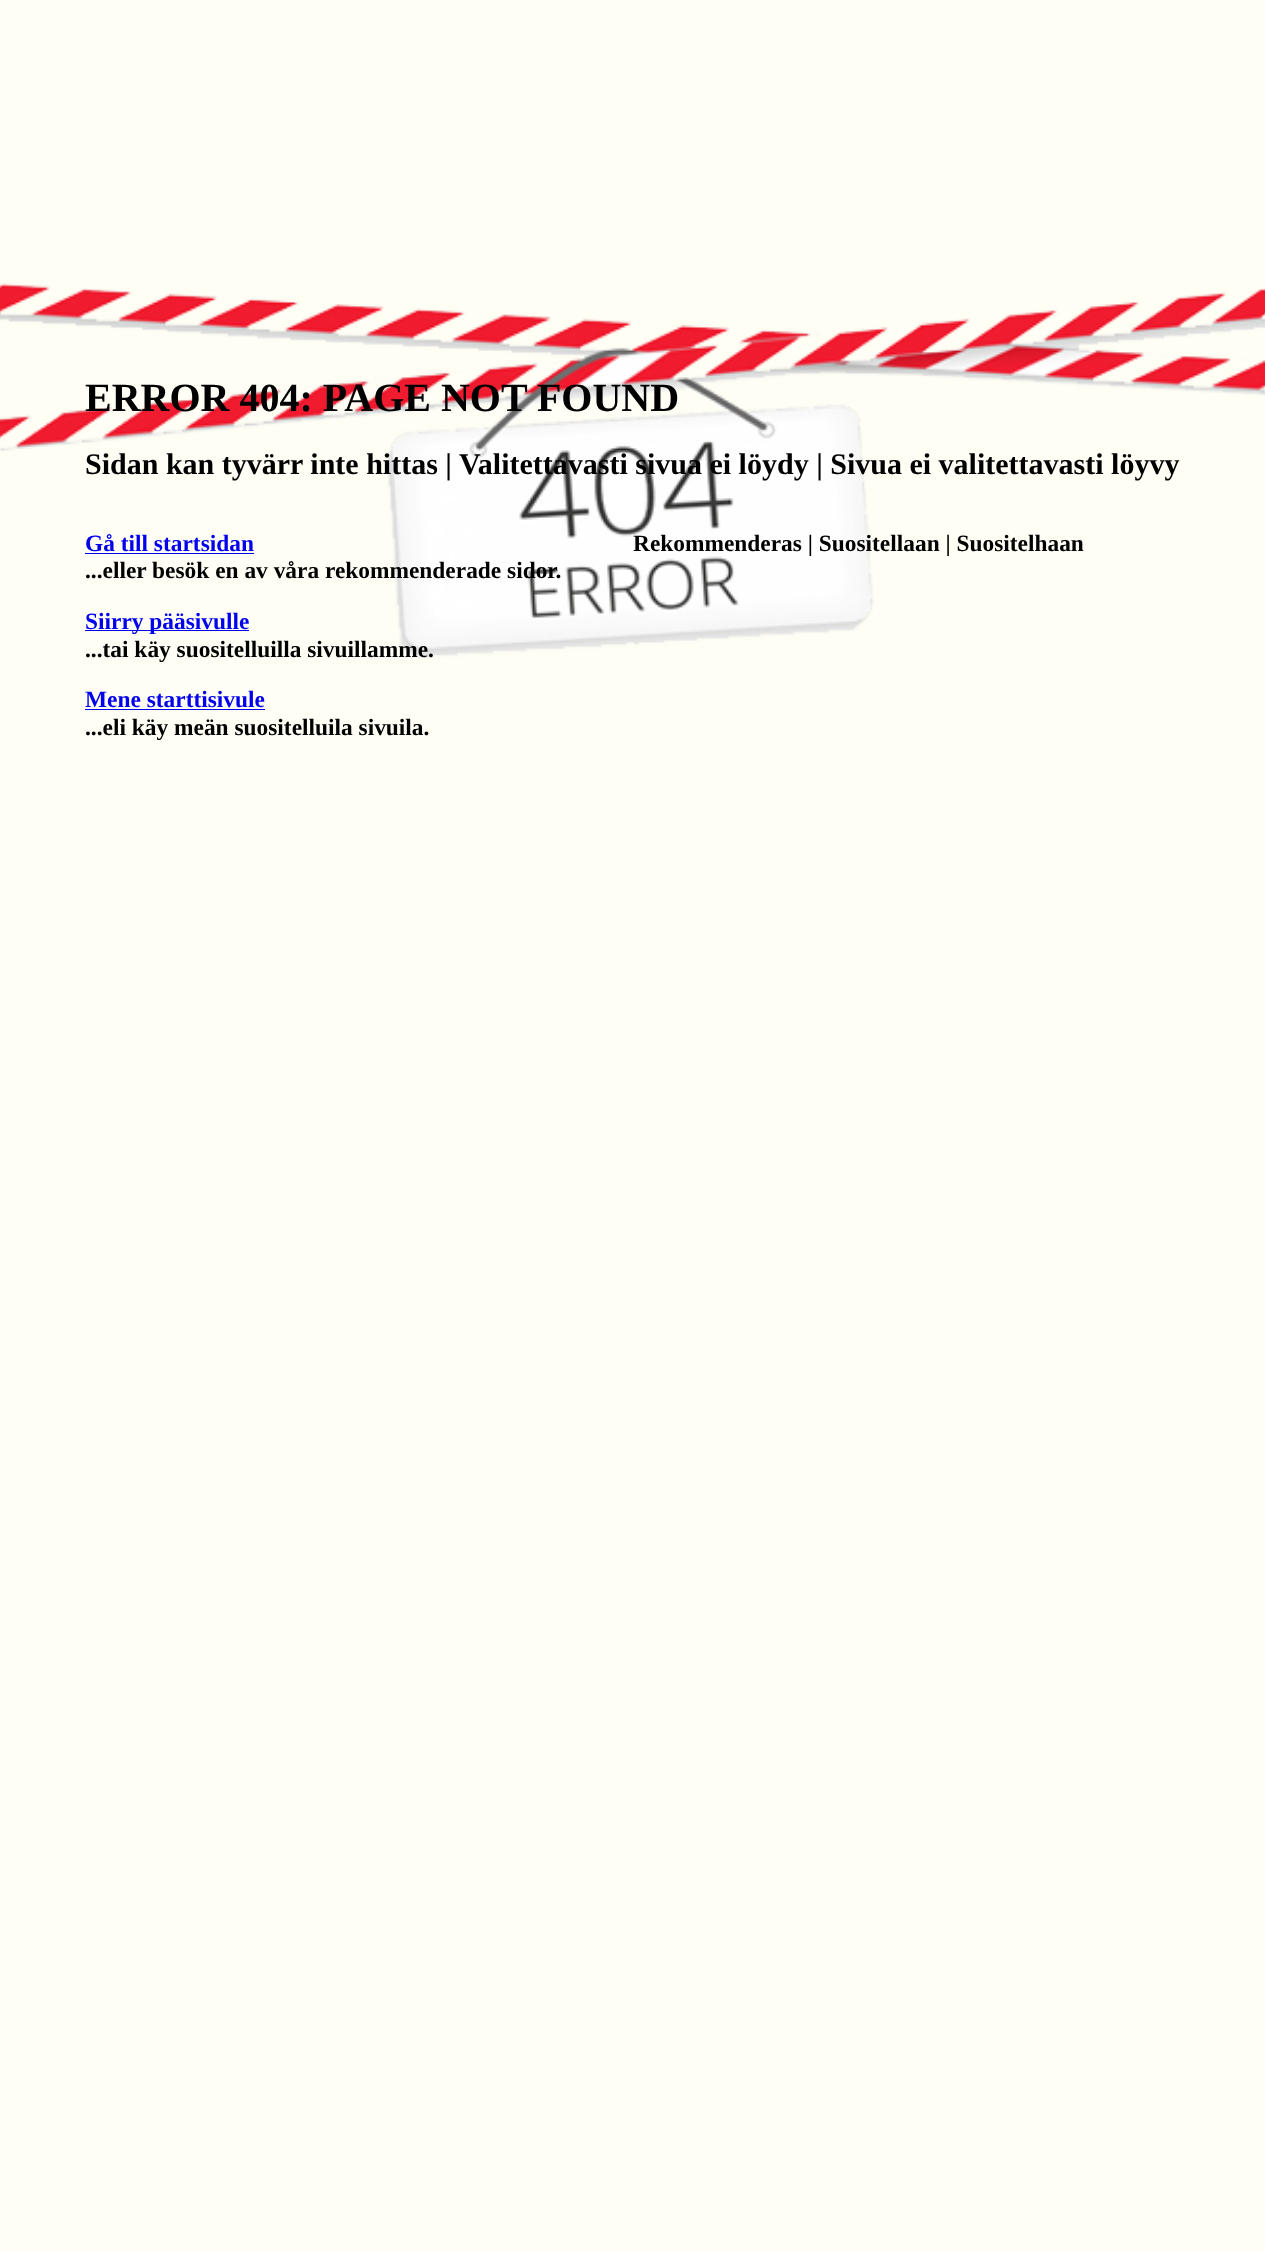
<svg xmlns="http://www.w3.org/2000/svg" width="1265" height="2252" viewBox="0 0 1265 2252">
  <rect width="100%" height="100%" fill="#fefef5"/>
  <image x="0" y="283" width="1265" height="375" href="img1.png"/>
  <text x="85" y="411" font-family="Liberation Serif" font-size="40" font-weight="bold" fill="#000000">ERROR 404: PAGE NOT FOUND</text>
  <text x="85" y="474" font-family="Liberation Serif" font-size="30" font-weight="bold" fill="#000000">Sidan kan tyvärr inte hittas | Valitettavasti sivua ei löydy | Sivua ei valitettavasti löyvy</text>
  <text x="85" y="551" font-family="Liberation Serif" font-size="23.4" font-weight="bold" fill="#0000ee">Gå till startsidan</text>
  <rect x="85" y="553" width="169" height="1" fill="#0000ee"/>
  <text x="85" y="578" font-family="Liberation Serif" font-size="23.4" font-weight="bold" fill="#000000">...eller besök en av våra rekommenderade sidor.</text>
  <rect x="85" y="630" width="164" height="1" fill="#0000ee"/>
  <text x="85" y="629" font-family="Liberation Serif" font-size="23.4" font-weight="bold" fill="#0000ee">Siirry pääsivulle</text>
  <text x="85" y="657" font-family="Liberation Serif" font-size="23.4" font-weight="bold" fill="#000000">...tai käy suositelluilla sivuillamme.</text>
  <text x="85" y="707" font-family="Liberation Serif" font-size="23.4" font-weight="bold" fill="#0000ee">Mene starttisivule</text>
  <rect x="85" y="709" width="180" height="1" fill="#0000ee"/>
  <text x="85" y="735" font-family="Liberation Serif" font-size="23.4" font-weight="bold" fill="#000000">...eli käy meän suositelluila sivuila.</text>
  <text x="633" y="551" font-family="Liberation Serif" font-size="23.4" font-weight="bold" fill="#000000">Rekommenderas | Suositellaan | Suositelhaan</text>
</svg>
